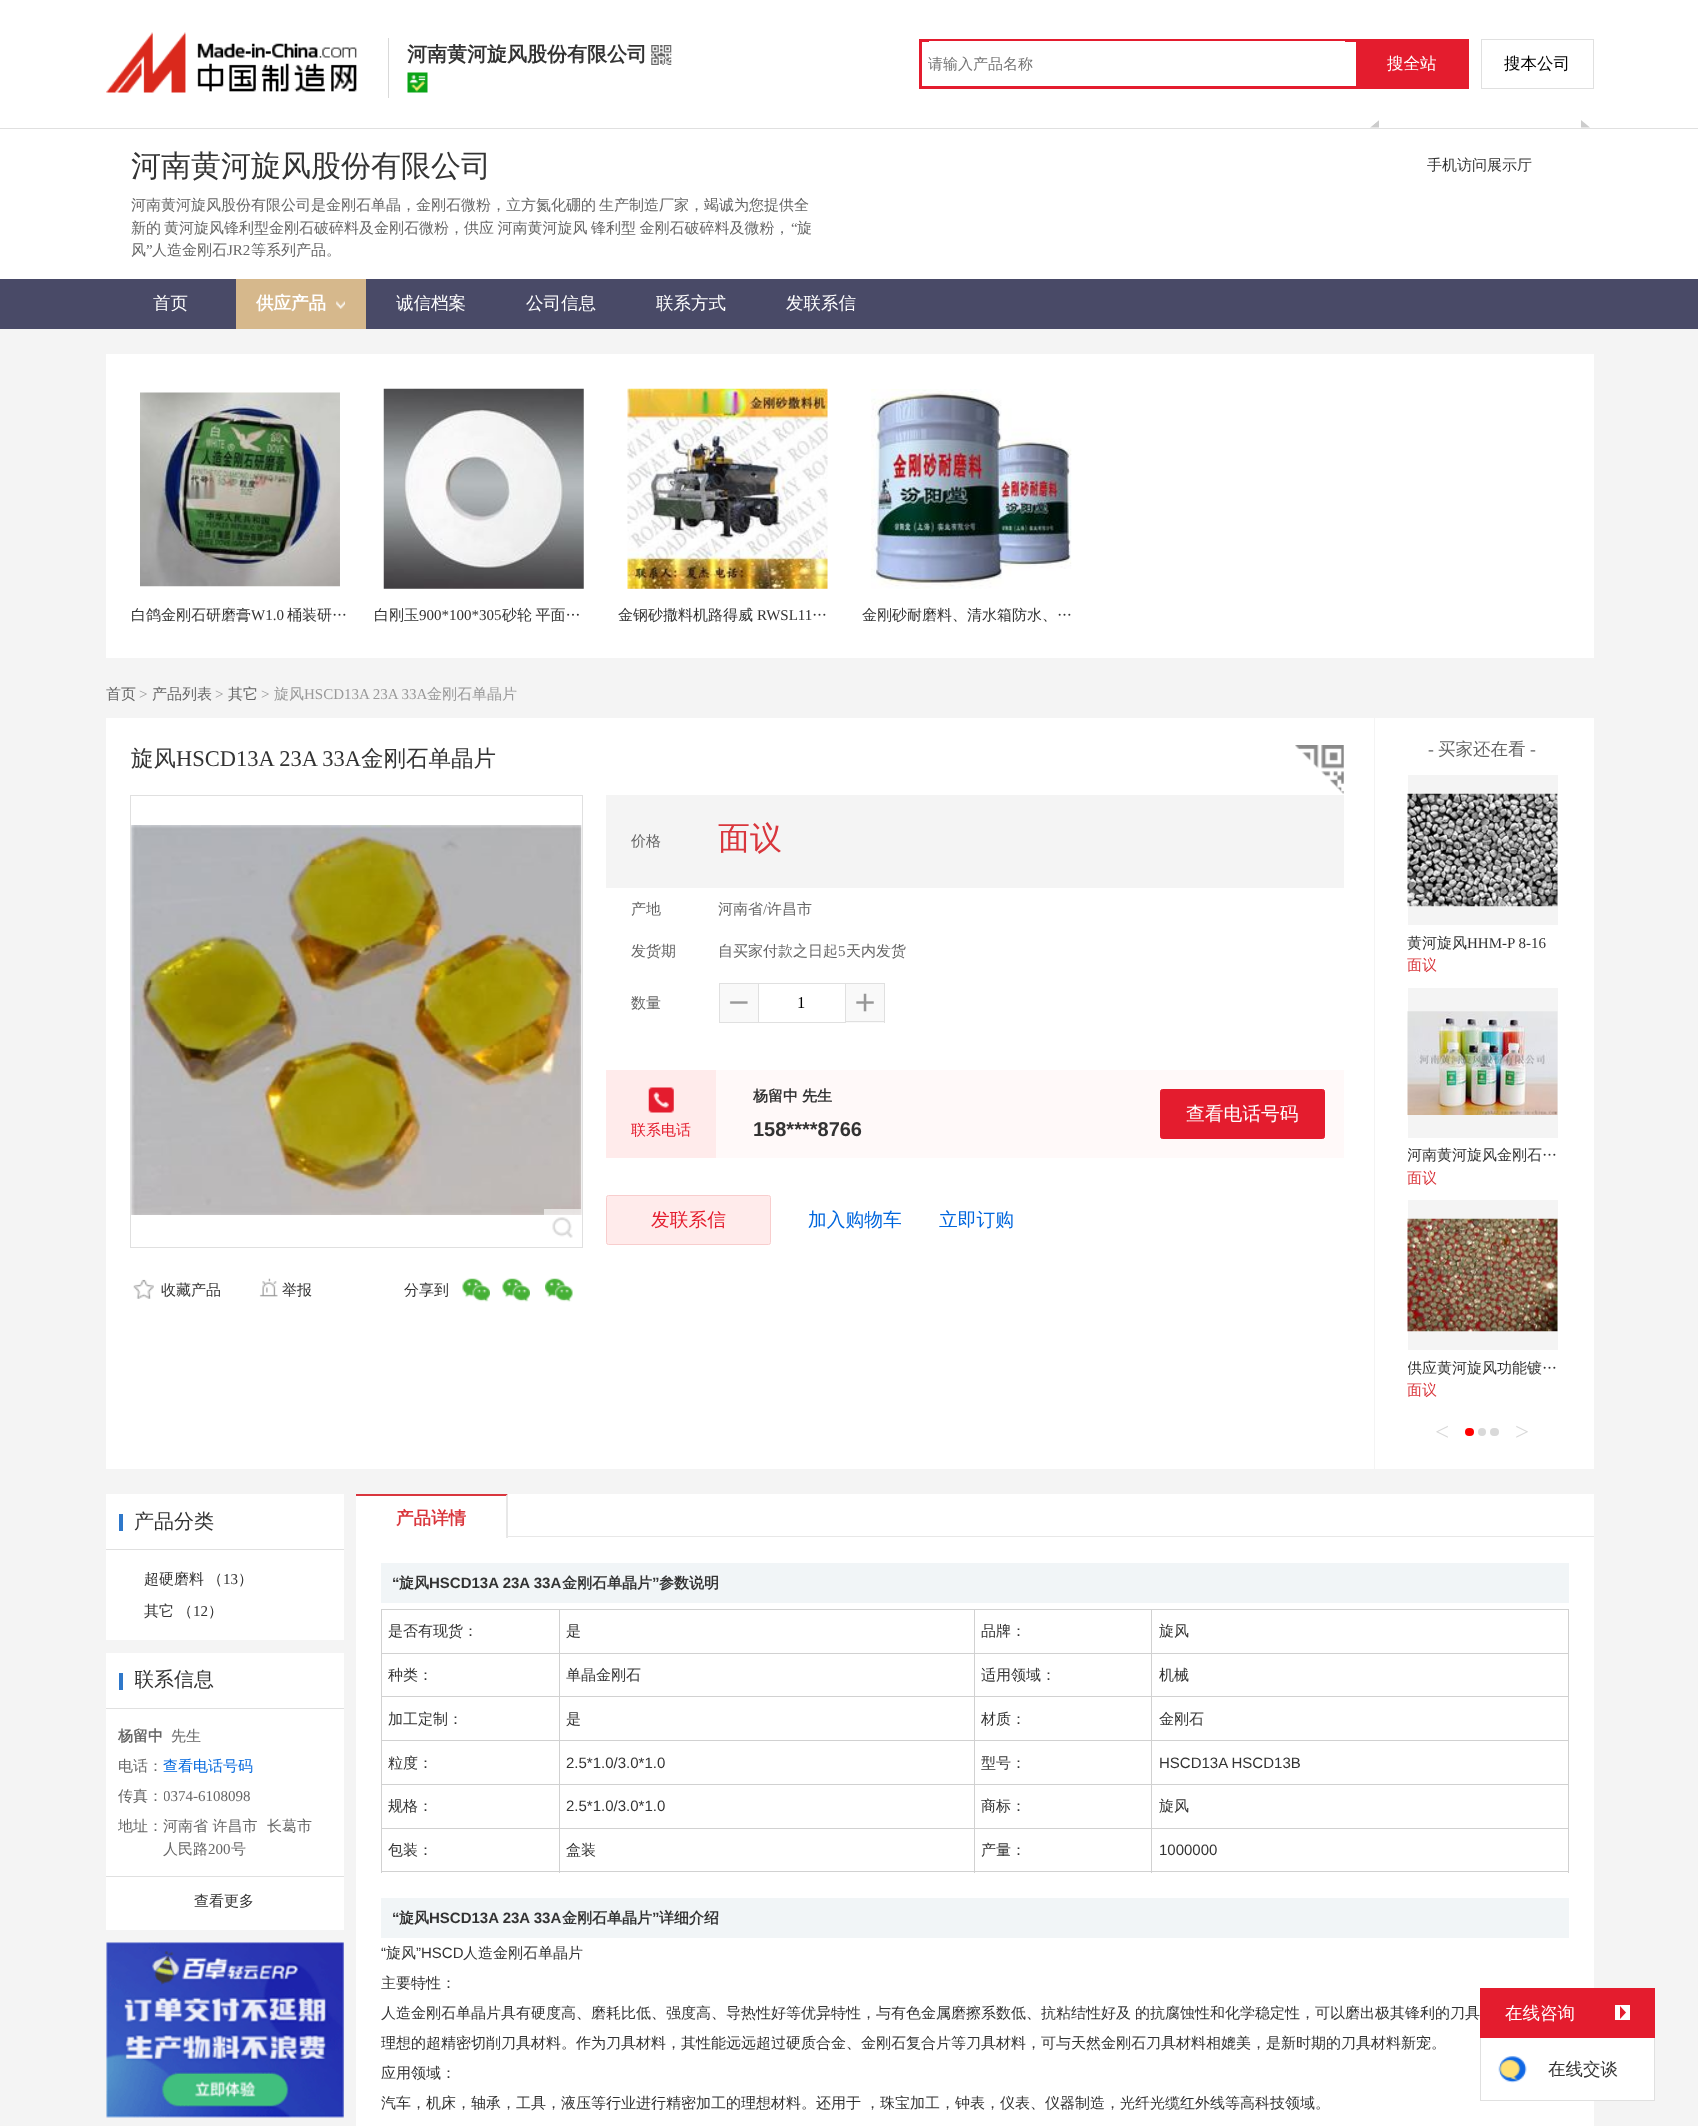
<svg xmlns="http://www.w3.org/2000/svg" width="1698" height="2126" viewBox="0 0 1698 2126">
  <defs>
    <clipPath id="clip1"><rect x="1408" y="1144" width="150" height="22"/></clipPath>
    <clipPath id="clip2"><rect x="1408" y="1356" width="150" height="23"/></clipPath>
    <clipPath id="clip3"><rect x="135" y="1653" width="80" height="55"/></clipPath>
    <clipPath id="clip4"><rect x="164" y="1785" width="167" height="23"/></clipPath>
  </defs>
  <rect width="100%" height="100%" fill="#f4f4f4"/>
  <rect x="0" y="0" width="1698" height="128" fill="#ffffff"/>
  <image x="106" y="32" width="251" height="61" href="img1.png"/>
  <rect x="388" y="38" width="1" height="60" fill="#d9d9d9"/>
  <text x="407" y="61" font-family="WenQuanYi Zen Hei" font-size="20" font-weight="bold" fill="#333333">河南黄河旋风股份有限公司</text>
  <image x="651" y="45" width="21" height="20" href="img2.png"/>
  <image x="407" y="72" width="21" height="21" href="img3.png"/>
  <rect x="919" y="39" width="437" height="3" fill="#e41c2e"/>
  <rect x="919" y="86" width="437" height="3" fill="#e41c2e"/>
  <rect x="919" y="39" width="3" height="50" fill="#e41c2e"/>
  <rect x="929" y="41" width="416" height="1" fill="#ffffff"/>
  <text x="928" y="69" font-family="WenQuanYi Zen Hei" font-size="15" font-weight="500" fill="#757575">请输入产品名称</text>
  <rect x="1356" y="39" width="113" height="50" fill="#e41c2e"/>
  <text x="1387" y="69" font-family="WenQuanYi Zen Hei" font-size="16.5" font-weight="500" fill="#ffffff">搜全站</text>
  <rect x="1481.5" y="39.5" width="112" height="49" fill="none" stroke="#e0e0e0"/>
  <text x="1504" y="69" font-family="WenQuanYi Zen Hei" font-size="16.5" font-weight="500" fill="#000000">搜本公司</text>
  <rect x="0" y="129" width="1698" height="150" fill="#ffffff"/>
  <rect x="0" y="128" width="1698" height="1" fill="#e0e0e0"/>
  <text x="131" y="176" font-family="WenQuanYi Zen Hei" font-size="30" font-weight="500" fill="#333333">河南黄河旋风股份有限公司</text>
  <text x="131" y="210" font-family="WenQuanYi Zen Hei" font-size="15" font-weight="500" fill="#666666">河南黄河旋风股份有限公司是金刚石单晶，金刚石微粉，立方氮化硼的</text>
  <text x="599" y="210" font-family="WenQuanYi Zen Hei" font-size="15" font-weight="500" fill="#666666">生产制造厂家，竭诚为您提供全</text>
  <text x="131" y="233" font-family="WenQuanYi Zen Hei" font-size="15" font-weight="500" fill="#666666">新的</text>
  <text x="164" y="233" word-spacing="-1" font-family="WenQuanYi Zen Hei" font-size="15" font-weight="500" fill="#666666">黄河旋风锋利型金刚石破碎料及金刚石微粉，供应 河南黄河旋风 锋利型 金刚石破碎料及微粉，</text>
  <text x="791" y="233" font-family="Liberation Serif" font-size="15" fill="#666666">“</text>
  <text x="797" y="233" font-family="WenQuanYi Zen Hei" font-size="15" font-weight="500" fill="#666666">旋</text>
  <text x="131" y="255" font-family="WenQuanYi Zen Hei" font-size="15" font-weight="500" fill="#666666">风</text>
  <text x="146" y="255" font-family="Liberation Serif" font-size="15" fill="#666666">”</text>
  <text x="152" y="255" font-family="WenQuanYi Zen Hei" font-size="15" font-weight="500" fill="#666666">人造金刚石</text>
  <text x="227" y="255" font-family="Liberation Serif" font-size="15" fill="#666666">JR2</text>
  <text x="251" y="255" font-family="WenQuanYi Zen Hei" font-size="15" font-weight="500" fill="#666666">等系列产品。</text>
  <path d="M1379 127.5H1370L1379 120Z" fill="#cccccc"/>
  <path d="M1370 127.5V120H1379Z" fill="#ffffff"/>
  <path d="M1590 127.5H1581V120Z" fill="#cccccc"/>
  <text x="1427" y="170" font-family="WenQuanYi Zen Hei" font-size="15" font-weight="500" fill="#333333">手机访问展示厅</text>
  <rect x="0" y="279" width="1698" height="50" fill="#494a67"/>
  <text x="153" y="309" font-family="WenQuanYi Zen Hei" font-size="17.5" font-weight="500" fill="#ffffff">首页</text>
  <rect x="236" y="279" width="130" height="50" fill="#d6b88c"/>
  <text x="256" y="309" font-family="WenQuanYi Zen Hei" font-size="17.5" font-weight="bold" fill="#ffffff">供应产品</text>
  <image x="336" y="301" width="9" height="8" href="img4.png"/>
  <text x="396" y="309" font-family="WenQuanYi Zen Hei" font-size="17.5" font-weight="500" fill="#ffffff">诚信档案</text>
  <text x="526" y="309" font-family="WenQuanYi Zen Hei" font-size="17.5" font-weight="500" fill="#ffffff">公司信息</text>
  <text x="656" y="309" font-family="WenQuanYi Zen Hei" font-size="17.5" font-weight="500" fill="#ffffff">联系方式</text>
  <text x="786" y="309" font-family="WenQuanYi Zen Hei" font-size="17.5" font-weight="500" fill="#ffffff">发联系信</text>
  <rect x="106" y="354" width="1488" height="304" fill="#ffffff"/>
  <image x="140" y="392" width="200" height="195" href="img5.png"/>
  <text x="131" y="620" font-family="WenQuanYi Zen Hei" font-size="15" font-weight="500" fill="#333333">白鸽金刚石研磨膏</text>
  <text x="251" y="620" font-family="Liberation Serif" font-size="15" fill="#333333">W1.0</text>
  <text x="287" y="620" font-family="WenQuanYi Zen Hei" font-size="15" font-weight="500" fill="#333333">桶装研…</text>
  <image x="383" y="388" width="201" height="201" href="img6.png"/>
  <text x="374" y="620" font-family="WenQuanYi Zen Hei" font-size="15" font-weight="500" fill="#333333">白刚玉</text>
  <text x="419" y="620" font-family="Liberation Serif" font-size="15" fill="#333333">900*100*305</text>
  <text x="502" y="620" word-spacing="-1" font-family="WenQuanYi Zen Hei" font-size="15" font-weight="500" fill="#333333">砂轮 平面…</text>
  <image x="627" y="388" width="201" height="201" href="img7.png"/>
  <text x="618" y="620" font-family="WenQuanYi Zen Hei" font-size="15" font-weight="500" fill="#333333">金钢砂撒料机路得威</text>
  <text x="757" y="620" font-family="Liberation Serif" font-size="15" fill="#333333">RWSL11</text>
  <text x="812" y="620" font-family="WenQuanYi Zen Hei" font-size="15" font-weight="500" fill="#333333">…</text>
  <image x="871" y="389" width="201" height="200" href="img8.png"/>
  <text x="862" y="620" font-family="WenQuanYi Zen Hei" font-size="15" font-weight="500" fill="#333333">金刚砂耐磨料、清水箱防水、…</text>
  <text x="106" y="699" font-family="WenQuanYi Zen Hei" font-size="15" font-weight="500" fill="#666666">首页</text>
  <text x="139" y="699" font-family="Liberation Serif" font-size="15" fill="#999999">&gt;</text>
  <text x="152" y="699" font-family="WenQuanYi Zen Hei" font-size="15" font-weight="500" fill="#666666">产品列表</text>
  <text x="215" y="699" font-family="Liberation Serif" font-size="15" fill="#999999">&gt;</text>
  <text x="228" y="699" font-family="WenQuanYi Zen Hei" font-size="15" font-weight="500" fill="#666666">其它</text>
  <text x="261" y="699" font-family="Liberation Serif" font-size="15" fill="#999999">&gt;</text>
  <text x="274" y="699" font-family="WenQuanYi Zen Hei" font-size="15" font-weight="500" fill="#999999">旋风</text>
  <text x="304" y="699" font-family="Liberation Serif" font-size="15" fill="#999999">HSCD13A 23A 33A</text>
  <text x="427" y="699" font-family="WenQuanYi Zen Hei" font-size="15" font-weight="500" fill="#999999">金刚石单晶片</text>
  <rect x="106" y="718" width="1488" height="751" fill="#ffffff"/>
  <text x="131" y="766" font-family="WenQuanYi Zen Hei" font-size="22.5" font-weight="500" fill="#333333">旋风</text>
  <text x="176" y="766" font-family="Liberation Serif" font-size="22.5" fill="#333333">HSCD13A 23A 33A</text>
  <text x="361" y="766" font-family="WenQuanYi Zen Hei" font-size="22.5" font-weight="500" fill="#333333">金刚石单晶片</text>
  <rect x="1374" y="718" width="1" height="751" fill="#f4f4f4"/>
  <text x="1428" y="755" font-family="Liberation Serif" font-size="17.5" fill="#666666">-</text>
  <text x="1438" y="755" font-family="WenQuanYi Zen Hei" font-size="17.5" font-weight="500" fill="#666666">买家还在看</text>
  <text x="1530" y="755" font-family="Liberation Serif" font-size="17.5" fill="#666666">-</text>
  <rect x="1408" y="775" width="150" height="150" fill="#f4f4f4"/>
  <image x="1407" y="793" width="151" height="114" href="img9.png"/>
  <text x="1407" y="948" font-family="WenQuanYi Zen Hei" font-size="15" font-weight="500" fill="#333333">黄河旋风</text>
  <text x="1467" y="948" font-family="Liberation Serif" font-size="15" fill="#333333">HHM-P 8-16</text>
  <text x="1407" y="970" font-family="WenQuanYi Zen Hei" font-size="15" font-weight="500" fill="#d9363c">面议</text>
  <rect x="1408" y="988" width="150" height="150" fill="#f4f4f4"/>
  <image x="1407" y="1011" width="151" height="104" href="img10.png"/>
  <g clip-path="url(#clip1)">
    <text x="1407" y="1160" font-family="WenQuanYi Zen Hei" font-size="15" font-weight="500" fill="#333333">河南黄河旋风金刚石…</text>
  </g>
  <text x="1407" y="1183" font-family="WenQuanYi Zen Hei" font-size="15" font-weight="500" fill="#d9363c">面议</text>
  <rect x="1408" y="1200" width="150" height="150" fill="#f4f4f4"/>
  <image x="1407" y="1218" width="151" height="114" href="img11.png"/>
  <g clip-path="url(#clip2)">
    <text x="1407" y="1373" font-family="WenQuanYi Zen Hei" font-size="15" font-weight="500" fill="#333333">供应黄河旋风功能镀…</text>
  </g>
  <text x="1407" y="1395" font-family="WenQuanYi Zen Hei" font-size="15" font-weight="500" fill="#d9363c">面议</text>
  <text x="1435" y="1440" font-family="Liberation Serif" font-size="25" fill="#d9d9d9">&lt;</text>
  <rect x="1465" y="1428" width="9" height="8" rx="4" fill="#ff0000"/>
  <circle cx="1482" cy="1432" r="4" fill="#d9d9d9"/>
  <rect x="1490" y="1428" width="9" height="8" rx="4" fill="#d9d9d9"/>
  <text x="1515" y="1440" font-family="Liberation Serif" font-size="25" fill="#d9d9d9">&gt;</text>
  <image x="1295" y="745" width="49" height="49" href="img12.png"/>
  <rect x="606" y="795" width="738" height="93" fill="#f4f4f4"/>
  <text x="631" y="846" font-family="WenQuanYi Zen Hei" font-size="15" font-weight="500" fill="#666666">价格</text>
  <text x="718" y="849" font-family="WenQuanYi Zen Hei" font-size="32" font-weight="500" fill="#d9363c">面议</text>
  <text x="631" y="914" font-family="WenQuanYi Zen Hei" font-size="15" font-weight="500" fill="#666666">产地</text>
  <text x="718" y="914" font-family="WenQuanYi Zen Hei" font-size="15" font-weight="500" fill="#666666">河南省</text>
  <text x="763" y="914" font-family="Liberation Serif" font-size="15" fill="#666666">/</text>
  <text x="767" y="914" font-family="WenQuanYi Zen Hei" font-size="15" font-weight="500" fill="#666666">许昌市</text>
  <text x="631" y="956" font-family="WenQuanYi Zen Hei" font-size="15" font-weight="500" fill="#666666">发货期</text>
  <text x="718" y="956" font-family="WenQuanYi Zen Hei" font-size="15" font-weight="500" fill="#666666">自买家付款之日起</text>
  <text x="838" y="956" font-family="Liberation Serif" font-size="15" fill="#666666">5</text>
  <text x="846" y="956" font-family="WenQuanYi Zen Hei" font-size="15" font-weight="500" fill="#666666">天内发货</text>
  <text x="631" y="1008" font-family="WenQuanYi Zen Hei" font-size="15" font-weight="500" fill="#666666">数量</text>
  <rect x="719.5" y="983.5" width="39" height="39" fill="#f9f9f9" stroke="#e0e0e0"/>
  <image x="729" y="1001" width="19" height="3" href="img13.png"/>
  <rect x="758.5" y="983.5" width="87" height="39" fill="none" stroke="#e0e0e0"/>
  <text x="797" y="1008" font-family="Liberation Serif" font-size="16.5" fill="#000000">1</text>
  <rect x="846" y="984" width="38" height="39" fill="#f9f9f9"/>
  <rect x="846" y="983" width="39" height="1" fill="#e0e0e0"/>
  <rect x="884" y="983" width="1" height="40" fill="#e0e0e0"/>
  <rect x="846" y="1021" width="39" height="1" fill="#e0e0e0"/>
  <image x="856" y="993" width="18" height="19" href="img14.png"/>
  <rect x="716" y="1070" width="628" height="88" fill="#fff9f9"/>
  <text x="753" y="1101" font-family="WenQuanYi Zen Hei" font-size="15" font-weight="bold" fill="#333333">杨留中</text>
  <text x="802" y="1101" font-family="WenQuanYi Zen Hei" font-size="15" font-weight="bold" fill="#333333">先生</text>
  <rect x="1160.5" y="1089.5" width="164" height="49" rx="2" fill="#e41c2e" stroke="#e41c2e"/>
  <text x="1186" y="1120" font-family="WenQuanYi Zen Hei" font-size="18.75" font-weight="500" fill="#ffffff">查看电话号码</text>
  <rect x="606" y="1070" width="110" height="88" fill="#ffebeb"/>
  <image x="648" y="1087" width="26" height="26" href="img15.png"/>
  <text x="631" y="1135" font-family="WenQuanYi Zen Hei" font-size="15" font-weight="500" fill="#e41c2e">联系电话</text>
  <text x="753" y="1136" font-family="Liberation Sans" font-size="20" font-weight="bold" fill="#333333">158****8766</text>
  <rect x="606.5" y="1195.5" width="164" height="49" rx="2" fill="#ffebeb" stroke="#f8cdcd"/>
  <text x="651" y="1226" font-family="WenQuanYi Zen Hei" font-size="18.75" font-weight="500" fill="#e41c2e">发联系信</text>
  <text x="808" y="1226" font-family="WenQuanYi Zen Hei" font-size="18.75" font-weight="500" fill="#0066dd">加入购物车</text>
  <text x="939" y="1226" font-family="WenQuanYi Zen Hei" font-size="18.75" font-weight="500" fill="#0066dd">立即订购</text>
  <rect x="130.5" y="795.5" width="452" height="452" fill="none" stroke="#e0e0e0"/>
  <image x="131" y="825" width="451" height="390" href="img16.png"/>
  <rect x="544" y="1209" width="37" height="6" fill="#ffffff" fill-opacity="0.6"/>
  <image x="552" y="1217" width="21" height="21" href="img17.png"/>
  <image x="133" y="1279" width="21" height="20" href="img18.png"/>
  <text x="161" y="1295" font-family="WenQuanYi Zen Hei" font-size="15" font-weight="500" fill="#333333">收藏产品</text>
  <image x="259" y="1278" width="19" height="19" href="img19.png"/>
  <text x="282" y="1295" font-family="WenQuanYi Zen Hei" font-size="15" font-weight="500" fill="#333333">举报</text>
  <text x="404" y="1295" font-family="WenQuanYi Zen Hei" font-size="15" font-weight="500" fill="#333333">分享到</text>
  <image x="462" y="1278" width="28" height="24" href="img20.png"/>
  <image x="502" y="1278" width="28" height="24" href="img20.png"/>
  <image x="545" y="1278" width="28" height="24" href="img21.png"/>
  <rect x="106" y="1494" width="238" height="146" fill="#ffffff"/>
  <rect x="106" y="1549" width="238" height="1" fill="#e0e0e0"/>
  <rect x="119" y="1514" width="4" height="17" fill="#2f78ca"/>
  <text x="134" y="1528" font-family="WenQuanYi Zen Hei" font-size="20" font-weight="500" fill="#333333">产品分类</text>
  <text x="144" y="1584" word-spacing="-1" font-family="WenQuanYi Zen Hei" font-size="15" font-weight="500" fill="#333333">超硬磨料 （</text>
  <text x="223" y="1584" font-family="Liberation Serif" font-size="15" fill="#333333">13</text>
  <text x="238" y="1584" font-family="WenQuanYi Zen Hei" font-size="15" font-weight="500" fill="#333333">）</text>
  <text x="144" y="1616" word-spacing="-1" font-family="WenQuanYi Zen Hei" font-size="15" font-weight="500" fill="#333333">其它 （</text>
  <text x="193" y="1616" font-family="Liberation Serif" font-size="15" fill="#333333">12</text>
  <text x="208" y="1616" font-family="WenQuanYi Zen Hei" font-size="15" font-weight="500" fill="#333333">）</text>
  <rect x="106" y="1653" width="238" height="277" fill="#ffffff"/>
  <rect x="106" y="1708" width="238" height="1" fill="#e0e0e0"/>
  <rect x="119" y="1673" width="4" height="17" fill="#2f78ca"/>
  <g clip-path="url(#clip3)">
    <text x="134" y="1686" font-family="WenQuanYi Zen Hei" font-size="20" font-weight="500" fill="#333333">联系信息</text>
  </g>
  <text x="118" y="1741" font-family="WenQuanYi Zen Hei" font-size="15" font-weight="bold" fill="#666666">杨留中</text>
  <text x="171" y="1741" font-family="WenQuanYi Zen Hei" font-size="15" font-weight="500" fill="#666666">先生</text>
  <text x="118" y="1771" font-family="WenQuanYi Zen Hei" font-size="15" font-weight="500" fill="#666666">电话：</text>
  <text x="163" y="1771" font-family="WenQuanYi Zen Hei" font-size="15" font-weight="500" fill="#0066dd">查看电话号码</text>
  <text x="118" y="1801" font-family="WenQuanYi Zen Hei" font-size="15" font-weight="500" fill="#666666">传真：</text>
  <g clip-path="url(#clip4)">
    <text x="163" y="1801" font-family="Liberation Serif" font-size="15" fill="#666666">0374-6108098</text>
  </g>
  <text x="118" y="1831" font-family="WenQuanYi Zen Hei" font-size="15" font-weight="500" fill="#666666">地址：</text>
  <text x="163" y="1831" font-family="WenQuanYi Zen Hei" font-size="15" font-weight="500" fill="#666666">河南省 许昌市</text>
  <text x="267" y="1831" font-family="WenQuanYi Zen Hei" font-size="15" font-weight="500" fill="#666666">长葛市</text>
  <text x="163" y="1854" font-family="WenQuanYi Zen Hei" font-size="15" font-weight="500" fill="#666666">人民路</text>
  <text x="208" y="1854" font-family="Liberation Serif" font-size="15" fill="#666666">200</text>
  <text x="231" y="1854" font-family="WenQuanYi Zen Hei" font-size="15" font-weight="500" fill="#666666">号</text>
  <rect x="106" y="1876" width="238" height="1" fill="#e0e0e0"/>
  <text x="194" y="1906" font-family="WenQuanYi Zen Hei" font-size="15" font-weight="500" fill="#333333">查看更多</text>
  <image x="106" y="1942" width="238" height="176" href="img22.png"/>
  <rect x="356" y="1494" width="1238" height="632" fill="#ffffff"/>
  <rect x="508" y="1536" width="1086" height="1" fill="#e8e8e8"/>
  <path d="M356 1494H508L506 1496H356Z" fill="#d9363e"/>
  <path d="M508 1494V1538H506V1496Z" fill="#e8e8e8"/>
  <text x="396" y="1524" font-family="WenQuanYi Zen Hei" font-size="17.5" font-weight="bold" fill="#d9363c">产品详情</text>
  <rect x="381" y="1563" width="1188" height="40" fill="#f1f5f7"/>
  <text x="392" y="1588" font-family="Liberation Sans" font-size="15" font-weight="bold" fill="#333333">“</text>
  <text x="399" y="1588" font-family="WenQuanYi Zen Hei" font-size="15" font-weight="bold" fill="#333333">旋风</text>
  <text x="429" y="1588" font-family="Liberation Sans" font-size="15" font-weight="bold" fill="#333333">HSCD13A 23A 33A</text>
  <text x="562" y="1588" font-family="WenQuanYi Zen Hei" font-size="15" font-weight="bold" fill="#333333">金刚石单晶片</text>
  <text x="652" y="1588" font-family="Liberation Sans" font-size="15" font-weight="bold" fill="#333333">”</text>
  <text x="659" y="1588" font-family="WenQuanYi Zen Hei" font-size="15" font-weight="bold" fill="#333333">参数说明</text>
  <rect x="381" y="1609" width="1188" height="1" fill="#d1d1d1"/>
  <rect x="381" y="1609" width="1" height="264" fill="#d1d1d1"/>
  <rect x="1568" y="1609" width="1" height="264" fill="#d1d1d1"/>
  <rect x="1151" y="1871" width="418" height="1" fill="#d1d1d1"/>
  <rect x="1151" y="1828" width="1" height="45" fill="#d1d1d1"/>
  <rect x="1151" y="1828" width="418" height="1" fill="#d1d1d1"/>
  <rect x="1151" y="1784" width="1" height="45" fill="#d1d1d1"/>
  <rect x="1151" y="1784" width="418" height="1" fill="#d1d1d1"/>
  <rect x="1151" y="1740" width="1" height="45" fill="#d1d1d1"/>
  <rect x="1151" y="1740" width="418" height="1" fill="#d1d1d1"/>
  <rect x="1151" y="1696" width="1" height="45" fill="#d1d1d1"/>
  <rect x="1151" y="1696" width="418" height="1" fill="#d1d1d1"/>
  <rect x="1151" y="1653" width="1" height="45" fill="#d1d1d1"/>
  <rect x="1151" y="1653" width="418" height="1" fill="#d1d1d1"/>
  <rect x="1151" y="1609" width="1" height="45" fill="#d1d1d1"/>
  <rect x="974" y="1871" width="179" height="1" fill="#d1d1d1"/>
  <rect x="974" y="1828" width="1" height="45" fill="#d1d1d1"/>
  <rect x="974" y="1828" width="179" height="1" fill="#d1d1d1"/>
  <rect x="974" y="1784" width="1" height="45" fill="#d1d1d1"/>
  <rect x="974" y="1784" width="179" height="1" fill="#d1d1d1"/>
  <rect x="974" y="1740" width="1" height="45" fill="#d1d1d1"/>
  <rect x="974" y="1740" width="179" height="1" fill="#d1d1d1"/>
  <rect x="974" y="1696" width="1" height="45" fill="#d1d1d1"/>
  <rect x="974" y="1696" width="179" height="1" fill="#d1d1d1"/>
  <rect x="974" y="1653" width="1" height="45" fill="#d1d1d1"/>
  <rect x="974" y="1653" width="179" height="1" fill="#d1d1d1"/>
  <rect x="974" y="1609" width="1" height="45" fill="#d1d1d1"/>
  <rect x="559" y="1871" width="416" height="1" fill="#d1d1d1"/>
  <rect x="559" y="1828" width="1" height="45" fill="#d1d1d1"/>
  <rect x="559" y="1828" width="416" height="1" fill="#d1d1d1"/>
  <rect x="559" y="1784" width="1" height="45" fill="#d1d1d1"/>
  <rect x="559" y="1784" width="416" height="1" fill="#d1d1d1"/>
  <rect x="559" y="1740" width="1" height="45" fill="#d1d1d1"/>
  <rect x="559" y="1740" width="416" height="1" fill="#d1d1d1"/>
  <rect x="559" y="1696" width="1" height="45" fill="#d1d1d1"/>
  <rect x="559" y="1696" width="416" height="1" fill="#d1d1d1"/>
  <rect x="559" y="1653" width="1" height="45" fill="#d1d1d1"/>
  <rect x="559" y="1653" width="416" height="1" fill="#d1d1d1"/>
  <rect x="559" y="1609" width="1" height="45" fill="#d1d1d1"/>
  <rect x="381" y="1653" width="179" height="1" fill="#d1d1d1"/>
  <text x="388" y="1636" font-family="WenQuanYi Zen Hei" font-size="15" font-weight="500" fill="#333333">是否有现货：</text>
  <text x="566" y="1636" font-family="WenQuanYi Zen Hei" font-size="15" font-weight="500" fill="#333333">是</text>
  <text x="981" y="1636" font-family="WenQuanYi Zen Hei" font-size="15" font-weight="500" fill="#333333">品牌：</text>
  <text x="1159" y="1636" font-family="WenQuanYi Zen Hei" font-size="15" font-weight="500" fill="#333333">旋风</text>
  <rect x="381" y="1696" width="179" height="1" fill="#d1d1d1"/>
  <text x="388" y="1680" font-family="WenQuanYi Zen Hei" font-size="15" font-weight="500" fill="#333333">种类：</text>
  <text x="566" y="1680" font-family="WenQuanYi Zen Hei" font-size="15" font-weight="500" fill="#333333">单晶金刚石</text>
  <text x="981" y="1680" font-family="WenQuanYi Zen Hei" font-size="15" font-weight="500" fill="#333333">适用领域：</text>
  <text x="1159" y="1680" font-family="WenQuanYi Zen Hei" font-size="15" font-weight="500" fill="#333333">机械</text>
  <rect x="381" y="1740" width="179" height="1" fill="#d1d1d1"/>
  <text x="388" y="1724" font-family="WenQuanYi Zen Hei" font-size="15" font-weight="500" fill="#333333">加工定制：</text>
  <text x="566" y="1724" font-family="WenQuanYi Zen Hei" font-size="15" font-weight="500" fill="#333333">是</text>
  <text x="981" y="1724" font-family="WenQuanYi Zen Hei" font-size="15" font-weight="500" fill="#333333">材质：</text>
  <text x="1159" y="1724" font-family="WenQuanYi Zen Hei" font-size="15" font-weight="500" fill="#333333">金刚石</text>
  <rect x="381" y="1784" width="179" height="1" fill="#d1d1d1"/>
  <text x="388" y="1768" font-family="WenQuanYi Zen Hei" font-size="15" font-weight="500" fill="#333333">粒度：</text>
  <text x="566" y="1768" font-family="Liberation Sans" font-size="15" fill="#333333">2.5*1.0/3.0*1.0</text>
  <text x="981" y="1768" font-family="WenQuanYi Zen Hei" font-size="15" font-weight="500" fill="#333333">型号：</text>
  <text x="1159" y="1768" font-family="Liberation Sans" font-size="15" fill="#333333">HSCD13A HSCD13B</text>
  <rect x="381" y="1828" width="179" height="1" fill="#d1d1d1"/>
  <text x="388" y="1811" font-family="WenQuanYi Zen Hei" font-size="15" font-weight="500" fill="#333333">规格：</text>
  <text x="566" y="1811" font-family="Liberation Sans" font-size="15" fill="#333333">2.5*1.0/3.0*1.0</text>
  <text x="981" y="1811" font-family="WenQuanYi Zen Hei" font-size="15" font-weight="500" fill="#333333">商标：</text>
  <text x="1159" y="1811" font-family="WenQuanYi Zen Hei" font-size="15" font-weight="500" fill="#333333">旋风</text>
  <rect x="381" y="1871" width="179" height="1" fill="#d1d1d1"/>
  <text x="388" y="1855" font-family="WenQuanYi Zen Hei" font-size="15" font-weight="500" fill="#333333">包装：</text>
  <text x="566" y="1855" font-family="WenQuanYi Zen Hei" font-size="15" font-weight="500" fill="#333333">盒装</text>
  <text x="981" y="1855" font-family="WenQuanYi Zen Hei" font-size="15" font-weight="500" fill="#333333">产量：</text>
  <text x="1159" y="1855" font-family="Liberation Sans" font-size="15" fill="#333333">1000000</text>
  <rect x="381" y="1898" width="1188" height="40" fill="#f1f5f7"/>
  <text x="392" y="1923" font-family="Liberation Sans" font-size="15" font-weight="bold" fill="#333333">“</text>
  <text x="399" y="1923" font-family="WenQuanYi Zen Hei" font-size="15" font-weight="bold" fill="#333333">旋风</text>
  <text x="429" y="1923" font-family="Liberation Sans" font-size="15" font-weight="bold" fill="#333333">HSCD13A 23A 33A</text>
  <text x="562" y="1923" font-family="WenQuanYi Zen Hei" font-size="15" font-weight="bold" fill="#333333">金刚石单晶片</text>
  <text x="652" y="1923" font-family="Liberation Sans" font-size="15" font-weight="bold" fill="#333333">”</text>
  <text x="659" y="1923" font-family="WenQuanYi Zen Hei" font-size="15" font-weight="bold" fill="#333333">详细介绍</text>
  <text x="381" y="1958" font-family="Liberation Sans" font-size="15" fill="#333333">“</text>
  <text x="386" y="1958" font-family="WenQuanYi Zen Hei" font-size="15" font-weight="500" fill="#333333">旋风</text>
  <text x="416" y="1958" font-family="Liberation Sans" font-size="15" fill="#333333">”HSCD</text>
  <text x="463" y="1958" font-family="WenQuanYi Zen Hei" font-size="15" font-weight="500" fill="#333333">人造金刚石单晶片</text>
  <text x="381" y="1988" font-family="WenQuanYi Zen Hei" font-size="15" font-weight="500" fill="#333333">主要特性：</text>
  <text x="381" y="2018" font-family="WenQuanYi Zen Hei" font-size="15" font-weight="500" fill="#333333">人造金刚石单晶片具有硬度高、磨耗比低、强度高、导热性好等优异特性，与有色金属磨擦系数低、抗粘结性好及</text>
  <text x="1135" y="2018" font-family="WenQuanYi Zen Hei" font-size="15" font-weight="500" fill="#333333">的抗腐蚀性和化学稳定性，可以磨出极其锋利的刀具</text>
  <text x="381" y="2048" font-family="WenQuanYi Zen Hei" font-size="15" font-weight="500" fill="#333333">理想的超精密切削刀具材料。作为刀具材料，其性能远远超过硬质合金、金刚石复合片等刀具材料，可与天然金刚石刀具材料相媲美，是新时期的刀具材料新宠。</text>
  <text x="381" y="2078" font-family="WenQuanYi Zen Hei" font-size="15" font-weight="500" fill="#333333">应用领域：</text>
  <text x="381" y="2108" font-family="WenQuanYi Zen Hei" font-size="15" font-weight="500" fill="#333333">汽车，机床，轴承，工具，液压等行业进行精密加工的理想材料。还用于</text>
  <text x="865" y="2108" font-family="WenQuanYi Zen Hei" font-size="15" font-weight="500" fill="#333333">，珠宝加工，钟表，仪表、仪器制造，光纤光缆红外线等高科技领域。</text>
  <rect x="1480" y="1988" width="175" height="50" fill="#e41c2e"/>
  <text x="1505" y="2019" font-family="WenQuanYi Zen Hei" font-size="17.5" font-weight="500" fill="#ffffff">在线咨询</text>
  <rect x="1615" y="2005" width="15" height="15" fill="#ffffff"/>
  <path d="M1620 2019V2006L1626 2012.5Z" fill="#e41c2e"/>
  <rect x="1594" y="2038" width="60" height="62" fill="#ffffff"/>
  <rect x="1654" y="2038" width="1" height="63" fill="#e0e0e0"/>
  <rect x="1480" y="2100" width="175" height="1" fill="#e0e0e0"/>
  <rect x="1480" y="2038" width="1" height="63" fill="#e0e0e0"/>
  <image x="1498" y="2056" width="29" height="27" href="img23.png"/>
  <text x="1548" y="2075" font-family="WenQuanYi Zen Hei" font-size="17.5" font-weight="500" fill="#333333">在线交谈</text>
</svg>
